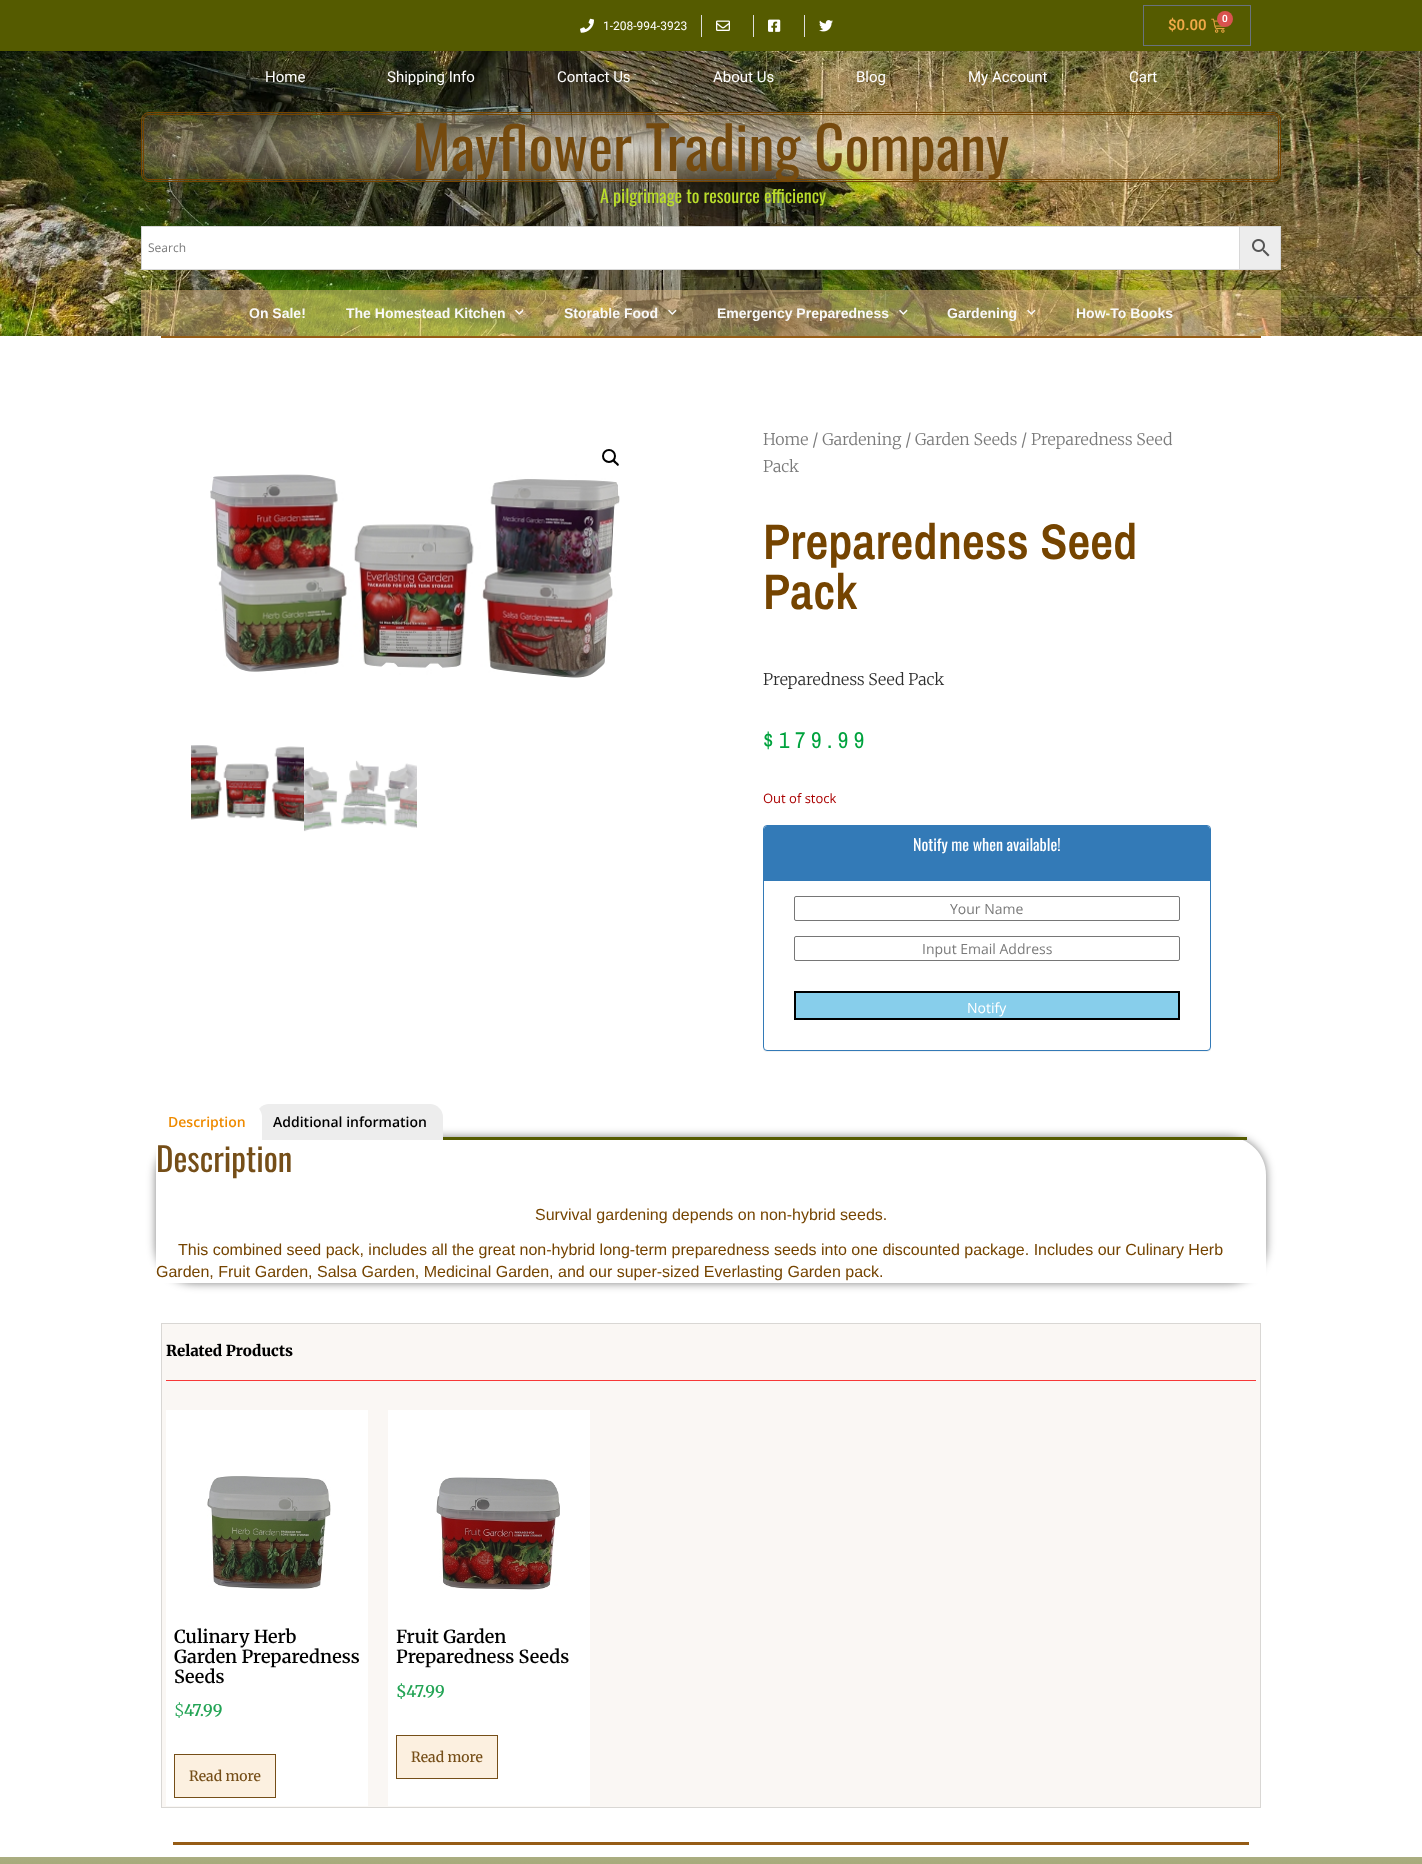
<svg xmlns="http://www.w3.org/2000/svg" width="1422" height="1864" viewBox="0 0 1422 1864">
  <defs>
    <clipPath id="clip1"><path d="M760 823H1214V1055H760ZM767 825H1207C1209 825 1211 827 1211 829V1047C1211 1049 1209 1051 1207 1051H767C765 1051 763 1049 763 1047V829C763 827 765 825 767 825Z" clip-rule="evenodd"/></clipPath>
    <filter id="blur1" x="-50%" y="-200%" width="200%" height="500%"><feGaussianBlur stdDeviation="0.5"/></filter>
    <filter id="blur2" x="-50%" y="-200%" width="200%" height="500%"><feGaussianBlur stdDeviation="5"/></filter>
    <clipPath id="clip2"><rect x="156" y="1104" width="1072" height="36"/></clipPath>
    <linearGradient id="g1" gradientUnits="userSpaceOnUse" x1="711" y1="1857" x2="711" y2="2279"><stop offset="0" stop-color="#aaad80"/><stop offset="0.51" stop-color="#555b00"/></linearGradient>
  </defs>
  <rect width="100%" height="100%" fill="#ffffff"/>
  <rect x="0" y="0" width="1422" height="51" fill="#555b00"/>
  <image x="580" y="18" width="14" height="15" href="img1.png"/>
  <text x="603" y="30" font-family="Roboto" font-size="12" fill="#ffffff">1-208-994-3923</text>
  <rect x="701" y="15" width="1" height="22" fill="#dddddd"/>
  <image x="716" y="20" width="14" height="11" href="img2.png"/>
  <rect x="753" y="15" width="1" height="22" fill="#dddddd"/>
  <image x="768" y="19" width="13" height="13" href="img3.png"/>
  <rect x="804" y="15" width="1" height="22" fill="#dddddd"/>
  <image x="819" y="20" width="14" height="12" href="img4.png"/>
  <rect x="1143.5" y="5.5" width="107" height="40" fill="none" stroke="#69727d"/>
  <text x="1168" y="30" font-family="Roboto" font-size="15" font-weight="600" fill="#efa947">$0.00</text>
  <image x="1211" y="18" width="14" height="15" href="img5.png"/>
  <circle cx="1225" cy="19" r="8" fill="#d9534f"/>
  <text x="1222" y="22" font-family="Roboto" font-size="10" font-weight="600" fill="#ffffff">0</text>
  <image x="0" y="51" width="1422" height="285" href="img6.png"/>
  <text x="265" y="82" font-family="Roboto" font-size="15" fill="#ffffff">Home</text>
  <text x="387" y="82" font-family="Roboto" font-size="15" fill="#ffffff">Shipping Info</text>
  <text x="557" y="82" font-family="Roboto" font-size="15" fill="#ffffff">Contact Us</text>
  <text x="713" y="82" font-family="Roboto" font-size="15" fill="#ffffff">About Us</text>
  <text x="856" y="82" font-family="Roboto" font-size="15" fill="#ffffff">Blog</text>
  <text x="968" y="82" font-family="Roboto" font-size="15" fill="#ffffff">My Account</text>
  <text x="1129" y="82" font-family="Roboto" font-size="15" fill="#ffffff">Cart</text>
  <rect x="141.5" y="112.5" width="1139" height="69" rx="7.5" fill="none" stroke="#754400"/>
  <rect x="143.5" y="114.5" width="1135" height="65" rx="5.5" fill="none" stroke="#754400"/>
  <text x="412" y="171" font-family="Oswald" font-size="59" fill="#754a0e">Mayflower Trading Company</text>
  <text x="600" y="203" font-family="Oswald" font-size="18" fill="#badd2c">A pilgrimage to resource efficiency</text>
  <rect x="1239.5" y="226.5" width="41" height="43" fill="#ededed" stroke="#d8d8d8"/>
  <rect x="141.5" y="226.5" width="1098" height="43" fill="#ffffff" stroke="#d8d8d8"/>
  <text x="148" y="252" font-family="Open Sans" font-size="12" fill="#7a7a7a">Search</text>
  <image x="1252" y="239" width="18" height="18" href="img7.png"/>
  <rect x="141" y="290" width="1140" height="46" fill="#efc68f" fill-opacity="0.45"/>
  <text x="249" y="318" font-family="Liberation Sans" font-size="14" font-weight="bold" fill="#f9f9f9">On Sale!</text>
  <text x="346" y="318" font-family="Liberation Sans" font-size="14" font-weight="bold" fill="#f9f9f9">The Homestead Kitchen</text>
  <image x="515" y="309" width="9" height="6" href="img8.png"/>
  <text x="564" y="318" font-family="Liberation Sans" font-size="14" font-weight="bold" fill="#f9f9f9">Storable Food</text>
  <image x="668" y="309" width="9" height="6" href="img9.png"/>
  <text x="717" y="318" font-family="Liberation Sans" font-size="14" font-weight="bold" fill="#f9f9f9">Emergency Preparedness</text>
  <image x="899" y="309" width="9" height="6" href="img10.png"/>
  <text x="947" y="318" font-family="Liberation Sans" font-size="14" font-weight="bold" fill="#f9f9f9">Gardening</text>
  <image x="1027" y="309" width="9" height="6" href="img11.png"/>
  <text x="1076" y="318" font-family="Liberation Sans" font-size="14" font-weight="bold" fill="#f9f9f9">How-To Books</text>
  <rect x="161" y="336" width="1100" height="2" fill="#965c15"/>
  <circle cx="609" cy="456" r="6" fill="none" stroke="#000000" stroke-width="2"/>
  <path d="M613 460C614.5 459 616 461.5 616.5 462C617 462.5 620 464.5 618.5 465.5C617.5 467 616 464 615 463.5C614.5 463 612 461 613 460Z" fill="#000000"/>
  <image x="210" y="474" width="410" height="204" href="img12.png"/>
  <image x="191" y="745" width="113" height="77" href="img13.png"/>
  <image x="304" y="760" width="113" height="72" href="img14.png"/>
  <text x="763" y="445" font-family="Merriweather" font-size="16" font-weight="300" fill="#7a7a7a">Home / Gardening / Garden Seeds / Preparedness Seed</text>
  <text x="763" y="472" font-family="Merriweather" font-size="16" font-weight="300" fill="#7a7a7a">Pack</text>
  <text x="763" y="559" font-family="Archivo Narrow" font-size="50" font-weight="600" fill="#754400">Preparedness Seed</text>
  <text x="763" y="609" font-family="Archivo Narrow" font-size="50" font-weight="600" fill="#754400">Pack</text>
  <text x="763" y="685" font-family="Merriweather" font-size="16" font-weight="300" fill="#2d2d2d">Preparedness Seed Pack</text>
  <text x="763" y="748" font-family="Archivo Narrow" font-size="23" letter-spacing="5.5" fill="#00a33e">$179.99</text>
  <text x="763" y="803" font-family="Open Sans" font-size="13" fill="#aa0000">Out of stock</text>
  <g clip-path="url(#clip1)">
    <rect x="763" y="826" width="448" height="226" rx="4" fill="#000000" fill-opacity="0.05" filter="url(#blur1)"/>
  </g>
  <rect x="763.5" y="825.5" width="447" height="225" rx="3.5" fill="none" stroke="#337ab7"/>
  <path d="M767 826H1207C1208.5 826 1210 827.5 1210 829V881H764V829C764 827.5 765.5 826 767 826Z" fill="#337ab7"/>
  <text x="913" y="851" font-family="Oswald" font-size="16" fill="#ffffff">Notify me when available!</text>
  <rect x="794.5" y="896.5" width="385" height="24" rx="1.5" fill="none" stroke="#767676"/>
  <text x="950" y="914" font-family="Open Sans" font-size="14" fill="#7a7a7a">Your Name</text>
  <rect x="794.5" y="936.5" width="385" height="24" rx="1.5" fill="none" stroke="#767676"/>
  <text x="922" y="954" font-family="Open Sans" font-size="14" fill="#7a7a7a">Input Email Address</text>
  <rect x="795" y="992" width="384" height="27" fill="#87ceeb" stroke="#000000" stroke-width="2"/>
  <text x="967" y="1013" font-family="Open Sans" font-size="14" fill="#ffffff">Notify</text>
  <rect x="156" y="1137" width="1110" height="146" rx="38" fill="#000000" fill-opacity="0.5" filter="url(#blur2)"/>
  <path d="M156 1137H1228C1249 1137 1266 1154 1266 1175V1283H156Z" fill="#ffffff"/>
  <path d="M269 1104H430C437 1104 443 1110 443 1117V1140H256V1117C256 1110 262 1104 269 1104Z" fill="#ededed"/>
  <g clip-path="url(#clip2)">
    <path d="M164 1104H249C256 1104 262 1110 262 1117V1140H151V1117C151 1110 157 1104 164 1104Z" fill="#ffffff"/>
  </g>
  <text x="168" y="1127" font-family="Open Sans" font-size="14" font-weight="600" fill="#ef8b00">Description</text>
  <text x="273" y="1127" font-family="Open Sans" font-size="14" font-weight="600" fill="#000000">Additional information</text>
  <rect x="443" y="1137" width="804" height="3" fill="#555b00"/>
  <text x="156" y="1172" font-family="Oswald" font-size="33" fill="#754e18">Description</text>
  <text x="535" y="1220" font-family="Liberation Sans" font-size="16" fill="#754400">Survival gardening depends on non-hybrid seeds.</text>
  <text x="178" y="1255" font-family="Liberation Sans" font-size="16" fill="#754400">This combined seed pack, includes all the great non-hybrid long-term preparedness seeds into one discounted package. Includes our Culinary Herb</text>
  <text x="156" y="1277" font-family="Liberation Sans" font-size="16" fill="#754400">Garden, Fruit Garden, Salsa Garden, Medicinal Garden, and our super-sized Everlasting Garden pack.</text>
  <rect x="161.5" y="1323.5" width="1099" height="484" fill="#faf7f4" stroke="#d9d7d4"/>
  <rect x="166" y="1380" width="1090" height="1" fill="#f73838"/>
  <text x="166" y="1356" font-family="Merriweather" font-size="15" font-weight="900" fill="#000000">Related Products</text>
  <rect x="166" y="1410" width="202" height="396" fill="#ffffff"/>
  <image x="207" y="1476" width="124" height="113" href="img15.png"/>
  <text x="174" y="1643" font-family="Merriweather" font-size="18" font-weight="600" fill="#000000">Culinary Herb</text>
  <text x="174" y="1663" font-family="Merriweather" font-size="18" font-weight="600" fill="#000000">Garden Preparedness</text>
  <text x="174" y="1683" font-family="Merriweather" font-size="18" font-weight="600" fill="#000000">Seeds</text>
  <text x="174" y="1716" font-family="Merriweather" font-size="16" font-weight="300" fill="#23a455">$</text>
  <text x="184" y="1716" font-family="Merriweather" font-size="16" font-weight="600" fill="#23a455">47.99</text>
  <rect x="174.5" y="1754.5" width="101" height="43" fill="#fcf0e0" stroke="#754e18"/>
  <text x="189" y="1781" font-family="Merriweather" font-size="14" font-weight="500" fill="#754e18">Read more</text>
  <rect x="388" y="1410" width="202" height="396" fill="#ffffff"/>
  <image x="436" y="1477" width="124" height="113" href="img16.png"/>
  <text x="396" y="1643" font-family="Merriweather" font-size="18" font-weight="600" fill="#000000">Fruit Garden</text>
  <text x="396" y="1663" font-family="Merriweather" font-size="18" font-weight="600" fill="#000000">Preparedness Seeds</text>
  <text x="396" y="1697" font-family="Merriweather" font-size="16" font-weight="600" fill="#23a455">$47.99</text>
  <rect x="396.5" y="1735.5" width="101" height="43" fill="#fcf0e0" stroke="#754e18"/>
  <text x="411" y="1762" font-family="Merriweather" font-size="14" font-weight="500" fill="#754e18">Read more</text>
  <rect x="173" y="1842" width="1076" height="3" fill="#965c15"/>
  <rect x="0" y="1857" width="1422" height="7" fill="url(#g1)"/>
</svg>
